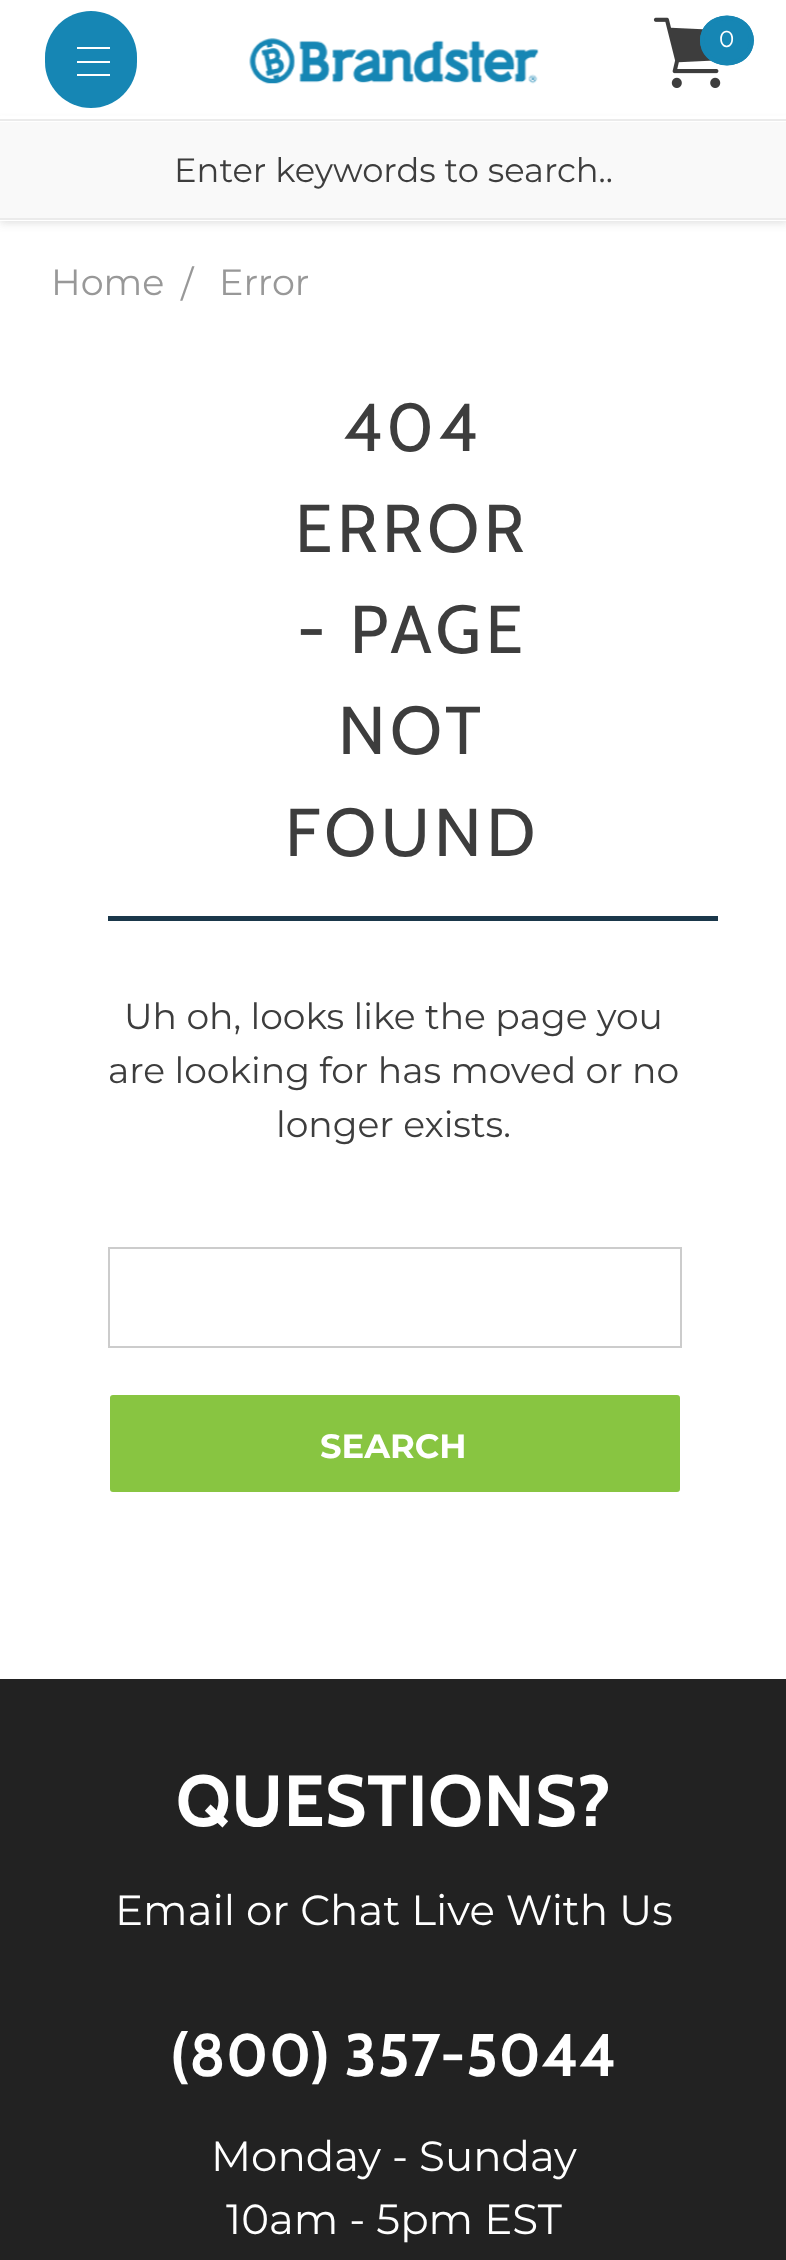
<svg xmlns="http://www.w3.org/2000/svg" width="786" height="2260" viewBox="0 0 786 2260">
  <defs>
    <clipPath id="clip1"><path d="M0 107H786V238H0ZM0 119H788V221H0Z" clip-rule="evenodd"/></clipPath>
    <filter id="blur1" x="-50%" y="-200%" width="200%" height="500%"><feGaussianBlur stdDeviation="4.5"/></filter>
  </defs>
  <rect width="100%" height="100%" fill="#ffffff"/>
  <rect x="0" y="218" width="786" height="2" fill="#ebebeb"/>
  <g clip-path="url(#clip1)">
    <rect x="0" y="122" width="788" height="101" fill="#7f7f7f" fill-opacity="0.25" filter="url(#blur1)"/>
  </g>
  <rect x="45" y="11" width="92" height="97" rx="46" fill="#1686b4"/>
  <rect x="77" y="61" width="33" height="2" fill="#ffffff"/>
  <rect x="77" y="47" width="33" height="2" fill="#ffffff"/>
  <rect x="77" y="74" width="33" height="2" fill="#ffffff"/>
  <rect x="0" y="116" width="786" height="3" fill="#ffffff"/>
  <image x="249" y="38" width="290" height="46" href="img1.png"/>
  <image x="653" y="17" width="70" height="71" href="img2.png"/>
  <ellipse cx="727" cy="40.5" rx="27" ry="25" fill="#1686b4"/>
  <path d="M727 18C759.5 18 759.5 63 727 63C694 63 694 18 727 18Z" fill="none" stroke="#1686b4" stroke-width="4.5"/>
  <text x="719" y="47" font-family="Montserrat" font-size="23" fill="#ffffff">0</text>
  <rect x="0" y="122" width="786" height="96" fill="#f9f9f9"/>
  <rect x="0" y="119" width="786" height="2" fill="#ebebeb"/>
  <text x="174" y="182" font-family="Montserrat" font-size="33.75" fill="#3d3d3d">Enter keywords to search..</text>
  <text x="51" y="295" font-family="Montserrat" font-size="36.5" fill="#989898">Home</text>
  <text x="181" y="297" font-family="Montserrat" font-size="36.5" fill="#989898">/</text>
  <text x="219" y="295" font-family="Montserrat" font-size="36.5" fill="#989898">Error</text>
  <rect x="108" y="916" width="610" height="5" fill="#1a374a"/>
  <text x="343" y="451" font-family="Cabin" font-size="67.5" letter-spacing="4.5" fill="#3d3d3d">404</text>
  <text x="295" y="552" font-family="Cabin" font-size="67.5" letter-spacing="4.5" fill="#3d3d3d">ERROR</text>
  <text x="297" y="653" font-family="Cabin" font-size="67.5" letter-spacing="4.5" fill="#3d3d3d">- PAGE</text>
  <text x="338" y="754" font-family="Cabin" font-size="67.5" letter-spacing="4.5" fill="#3d3d3d">NOT</text>
  <text x="285" y="856" font-family="Cabin" font-size="67.5" letter-spacing="4.5" fill="#3d3d3d">FOUND</text>
  <text x="124" y="1029" font-family="Montserrat" font-size="36.1" fill="#3d3d3d">Uh oh, looks like the page you</text>
  <text x="108" y="1083" font-family="Montserrat" font-size="36.1" fill="#3d3d3d">are looking for has moved or no</text>
  <text x="276" y="1137" font-family="Montserrat" font-size="36.1" fill="#3d3d3d">longer exists.</text>
  <rect x="109" y="1248" width="572" height="99" fill="none" stroke="#cccccc" stroke-width="2"/>
  <rect x="109" y="1394" width="572" height="99" rx="4" fill="#88c541" stroke="#ffffff" stroke-width="2"/>
  <text x="320" y="1458" font-family="Montserrat" font-size="33.75" font-weight="bold" fill="#ffffff">SEARCH</text>
  <rect x="0" y="1679" width="786" height="581" fill="#222222"/>
  <text x="176" y="1826" font-family="Cabin" font-size="72" font-weight="bold" letter-spacing="0.5" fill="#ffffff">QUESTIONS?</text>
  <text x="115" y="1925" font-family="Montserrat" font-size="42" fill="#ffffff">Email or Chat Live With Us</text>
  <text x="170" y="2076" font-family="Cabin" font-size="60" font-weight="bold" letter-spacing="0.5" fill="#ffffff">(800) 357-5044</text>
  <text x="211" y="2171" font-family="Montserrat" font-size="42" fill="#ffffff">Monday - Sunday</text>
  <text x="226" y="2234" font-family="Montserrat" font-size="42" fill="#ffffff">10am - 5pm EST</text>
</svg>
